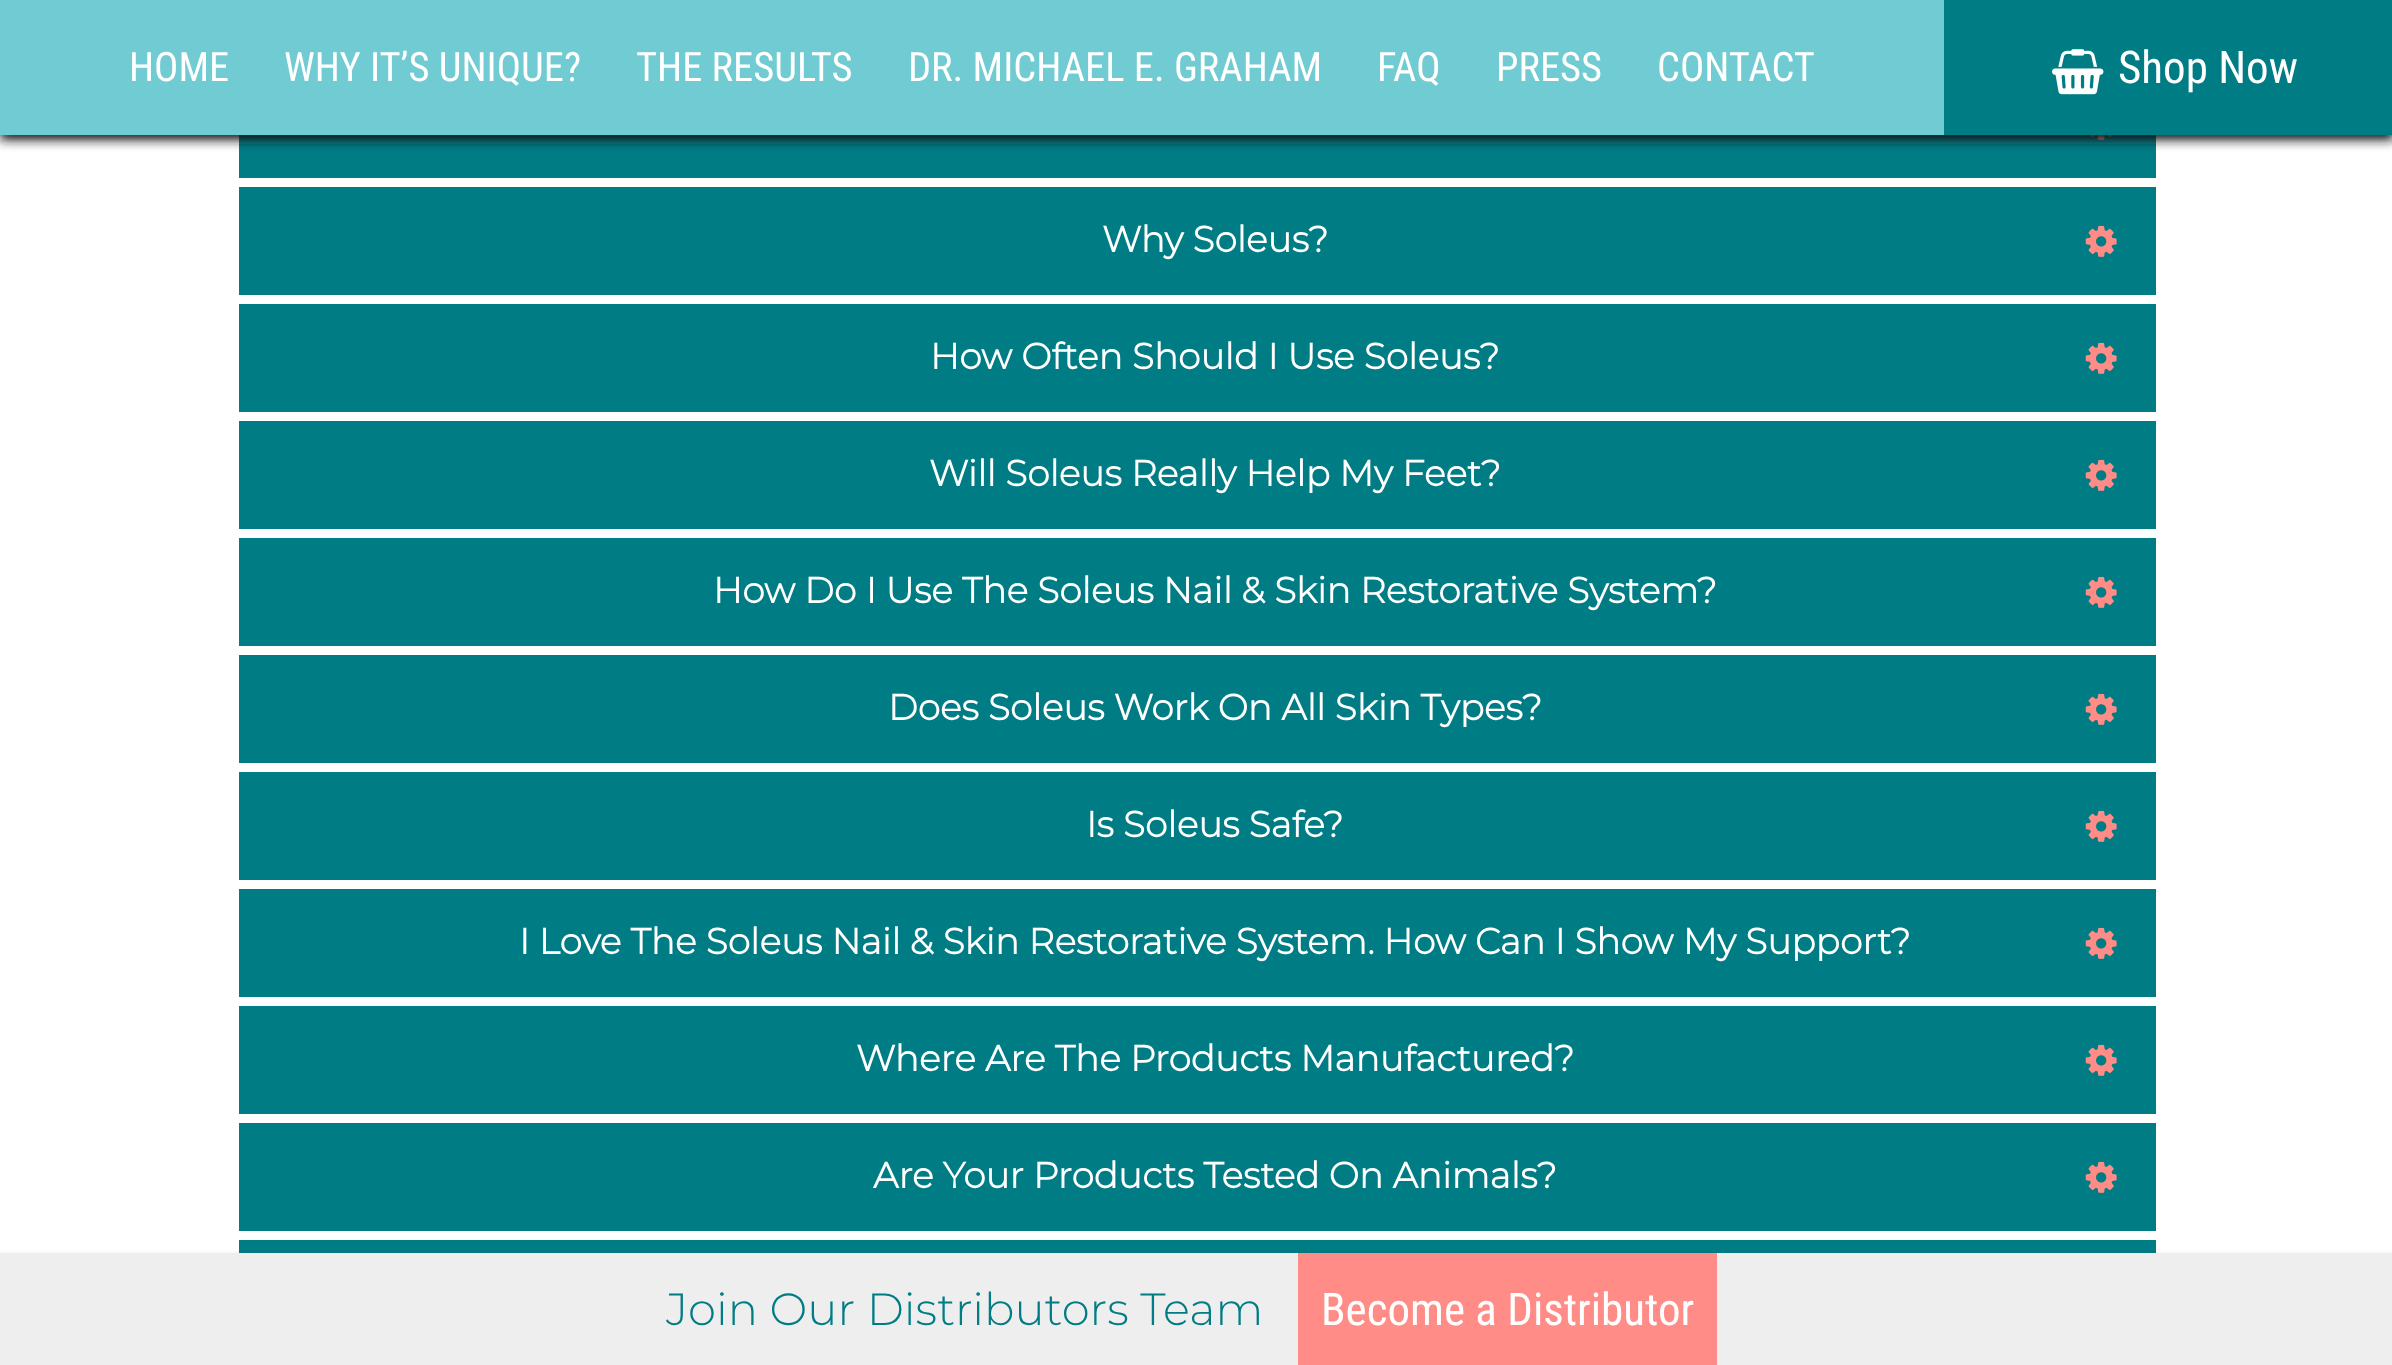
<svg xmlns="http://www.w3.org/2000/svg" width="2392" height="1365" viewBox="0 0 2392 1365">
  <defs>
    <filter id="blur1" x="-50%" y="-200%" width="200%" height="500%"><feGaussianBlur stdDeviation="5.5"/></filter>
  </defs>
  <rect width="100%" height="100%" fill="#ffffff"/>
  <rect x="239" y="135" width="1917" height="43" fill="#007c85"/>
  <image x="2090" y="135" width="23" height="5" href="img2.png"/>
  <rect x="0" y="5" width="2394" height="135" fill="#121212" filter="url(#blur1)"/>
  <rect x="0" y="0" width="1944" height="135" fill="#70cbd2"/>
  <text x="129" y="81" font-family="Roboto Condensed" font-size="40.5" fill="#ffffff">HOME</text>
  <text x="284" y="81" font-family="Roboto Condensed" font-size="40.5" fill="#ffffff">WHY IT’S UNIQUE?</text>
  <text x="636" y="81" font-family="Roboto Condensed" font-size="40.5" fill="#ffffff">THE RESULTS</text>
  <text x="908" y="81" font-family="Roboto Condensed" font-size="40.5" fill="#ffffff">DR. MICHAEL E. GRAHAM</text>
  <text x="1377" y="81" font-family="Roboto Condensed" font-size="40.5" fill="#ffffff">FAQ</text>
  <text x="1496" y="81" font-family="Roboto Condensed" font-size="40.5" fill="#ffffff">PRESS</text>
  <text x="1657" y="81" font-family="Roboto Condensed" font-size="40.5" fill="#ffffff">CONTACT</text>
  <rect x="1944" y="0" width="448" height="135" fill="#007c85"/>
  <image x="2052" y="49" width="52" height="46" href="img1.png"/>
  <text x="2118" y="83" font-family="Roboto Condensed" font-size="45" fill="#ffffff">Shop Now</text>
  <rect x="239" y="187" width="1917" height="108" fill="#007c85"/>
  <text x="1102" y="252" font-family="Montserrat" font-size="36" font-weight="bold" fill="#ffffff">Why Soleus?</text>
  <image x="2085" y="225" width="32" height="32" href="img3.png"/>
  <rect x="239" y="304" width="1917" height="108" fill="#007c85"/>
  <text x="930" y="369" font-family="Montserrat" font-size="36" font-weight="bold" fill="#ffffff">How Often Should I Use Soleus?</text>
  <image x="2085" y="342" width="32" height="32" href="img3.png"/>
  <rect x="239" y="421" width="1917" height="108" fill="#007c85"/>
  <text x="929" y="486" font-family="Montserrat" font-size="36" font-weight="bold" fill="#ffffff">Will Soleus Really Help My Feet?</text>
  <image x="2085" y="459" width="32" height="32" href="img3.png"/>
  <rect x="239" y="538" width="1917" height="108" fill="#007c85"/>
  <text x="713" y="603" font-family="Montserrat" font-size="36" font-weight="bold" fill="#ffffff">How Do I Use The Soleus Nail &amp; Skin Restorative System?</text>
  <image x="2085" y="576" width="32" height="32" href="img3.png"/>
  <rect x="239" y="655" width="1917" height="108" fill="#007c85"/>
  <text x="888" y="720" font-family="Montserrat" font-size="36" font-weight="bold" fill="#ffffff">Does Soleus Work On All Skin Types?</text>
  <image x="2085" y="693" width="32" height="32" href="img3.png"/>
  <rect x="239" y="772" width="1917" height="108" fill="#007c85"/>
  <text x="1086" y="837" font-family="Montserrat" font-size="36" font-weight="bold" fill="#ffffff">Is Soleus Safe?</text>
  <image x="2085" y="810" width="32" height="32" href="img3.png"/>
  <rect x="239" y="889" width="1917" height="108" fill="#007c85"/>
  <text x="519" y="954" font-family="Montserrat" font-size="36" font-weight="bold" fill="#ffffff">I Love The Soleus Nail &amp; Skin Restorative System. How Can I Show My Support?</text>
  <image x="2085" y="927" width="32" height="32" href="img3.png"/>
  <rect x="239" y="1006" width="1917" height="108" fill="#007c85"/>
  <text x="856" y="1071" font-family="Montserrat" font-size="36" font-weight="bold" fill="#ffffff">Where Are The Products Manufactured?</text>
  <image x="2085" y="1044" width="32" height="32" href="img3.png"/>
  <rect x="239" y="1123" width="1917" height="108" fill="#007c85"/>
  <text x="873" y="1188" font-family="Montserrat" font-size="36" font-weight="bold" fill="#ffffff">Are Your Products Tested On Animals?</text>
  <image x="2085" y="1161" width="32" height="32" href="img3.png"/>
  <rect x="239" y="1240" width="1917" height="13" fill="#007c85"/>
  <rect x="0" y="1262" width="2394" height="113" fill="#121212" filter="url(#blur1)"/>
  <rect x="0" y="1253" width="2392" height="112" fill="#eeeeee"/>
  <text x="666" y="1325" font-family="Montserrat" font-size="45" font-weight="100" fill="#007c85">Join Our Distributors Team</text>
  <rect x="1298" y="1253" width="419" height="112" fill="#ff8c86"/>
  <text x="1321" y="1325" font-family="Roboto Condensed" font-size="45" fill="#ffffff">Become a Distributor</text>
</svg>
